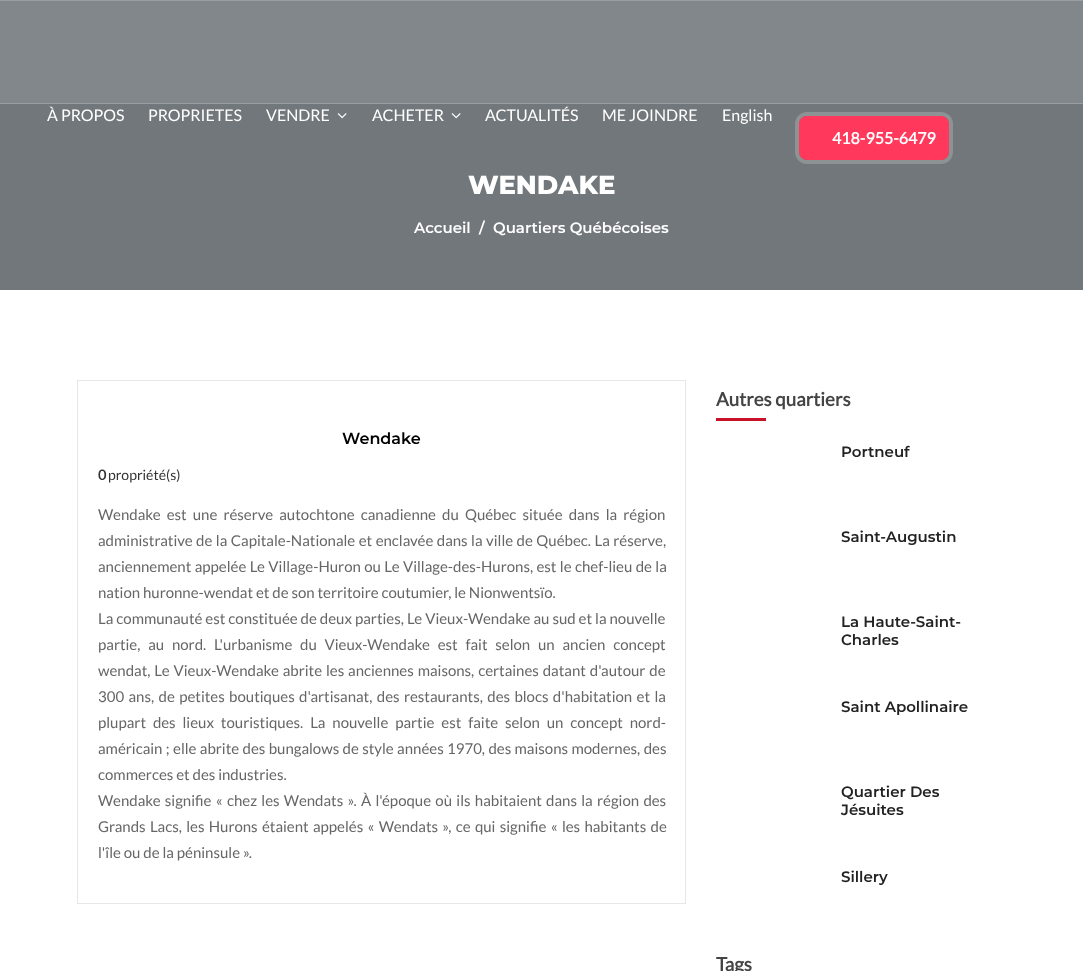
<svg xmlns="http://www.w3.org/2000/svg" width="1083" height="971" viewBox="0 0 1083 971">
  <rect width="100%" height="100%" fill="#ffffff"/>
  <rect x="0" y="1" width="1083" height="102" fill="#82878b"/>
  <rect x="0" y="0" width="1083" height="1" fill="#9b9fa2"/>
  <rect x="0" y="103" width="1083" height="1" fill="#9b9fa2"/>
  <rect x="0" y="104" width="1083" height="186" fill="#71777b"/>
  <text x="47" y="121" font-family="Lato" font-size="16" fill="#ffffff">À PROPOS</text>
  <text x="148" y="121" font-family="Lato" font-size="16" fill="#ffffff">PROPRIETES</text>
  <text x="266" y="121" font-family="Lato" font-size="16" fill="#ffffff">VENDRE</text>
  <image x="337" y="113" width="10" height="6" href="img1.png"/>
  <text x="372" y="121" font-family="Lato" font-size="16" fill="#ffffff">ACHETER</text>
  <image x="451" y="113" width="10" height="6" href="img1.png"/>
  <text x="485" y="121" font-family="Lato" font-size="16" fill="#ffffff">ACTUALITÉS</text>
  <text x="602" y="121" font-family="Lato" font-size="16" fill="#ffffff">ME JOINDRE</text>
  <text x="722" y="121" font-family="Lato" font-size="16" fill="#ffffff">English</text>
  <rect x="797" y="114" width="154" height="48" rx="10" fill="none" stroke="#8d9295" stroke-width="4"/>
  <rect x="799" y="116" width="150" height="44" rx="8" fill="#ff385c"/>
  <text x="832" y="144" font-family="Lato" font-size="16" font-weight="bold" fill="#ffffff">418-955-6479</text>
  <text x="468" y="194" font-family="Montserrat" font-size="26" font-weight="800" fill="#ffffff">WENDAKE</text>
  <text x="414" y="233" font-family="Montserrat" font-size="15" font-weight="600" fill="#ffffff">Accueil</text>
  <text x="479" y="233" font-family="Montserrat" font-size="15" font-weight="600" fill="#ffffff">/</text>
  <text x="493" y="233" font-family="Montserrat" font-size="15" font-weight="600" fill="#ffffff">Quartiers Québécoises</text>
  <rect x="77.5" y="380.5" width="608" height="523" fill="none" stroke="#e7e7e7"/>
  <text x="342" y="444" font-family="Montserrat" font-size="16" font-weight="600" fill="#000000">Wendake</text>
  <text x="98" y="480" font-family="Lato" font-size="14" font-weight="bold" fill="#333333">0</text>
  <text x="108" y="480" font-family="Lato" font-size="14" fill="#333333">propriété(s)</text>
  <text x="98" y="520" word-spacing="3.25" font-family="Lato" font-size="15" fill="#666666">Wendake est une réserve autochtone canadienne du Québec située dans la région</text>
  <text x="98" y="546" word-spacing="0.6" font-family="Lato" font-size="15" fill="#666666">administrative de la Capitale-Nationale et enclavée dans la ville de Québec. La réserve,</text>
  <text x="98" y="572" word-spacing="0.5" font-family="Lato" font-size="15" fill="#666666">anciennement appelée Le Village-Huron ou Le Village-des-Hurons, est le chef-lieu de la</text>
  <text x="98" y="598" font-family="Lato" font-size="15" fill="#666666">nation huronne-wendat et de son territoire coutumier, le Nionwentsïo.</text>
  <text x="98" y="624" word-spacing="0.1" font-family="Lato" font-size="15" fill="#666666">La communauté est constituée de deux parties, Le Vieux-Wendake au sud et la nouvelle</text>
  <text x="98" y="650" word-spacing="4.9" font-family="Lato" font-size="15" fill="#666666">partie, au nord. L'urbanisme du Vieux-Wendake est fait selon un ancien concept</text>
  <text x="98" y="676" word-spacing="1" font-family="Lato" font-size="15" fill="#666666">wendat, Le Vieux-Wendake abrite les anciennes maisons, certaines datant d'autour de</text>
  <text x="98" y="702" word-spacing="1.5" font-family="Lato" font-size="15" fill="#666666">300 ans, de petites boutiques d'artisanat, des restaurants, des blocs d'habitation et la</text>
  <text x="98" y="728" word-spacing="4" font-family="Lato" font-size="15" fill="#666666">plupart des lieux touristiques. La nouvelle partie est faite selon un concept nord-</text>
  <text x="98" y="754" word-spacing="0.5" font-family="Lato" font-size="15" fill="#666666">américain ; elle abrite des bungalows de style années 1970, des maisons modernes, des</text>
  <text x="98" y="780" font-family="Lato" font-size="15" fill="#666666">commerces et des industries.</text>
  <text x="98" y="806" word-spacing="1.4" font-family="Lato" font-size="15" fill="#666666">Wendake signifie « chez les Wendats ». À l'époque où ils habitaient dans la région des</text>
  <text x="98" y="832" word-spacing="1.4" font-family="Lato" font-size="15" fill="#666666">Grands Lacs, les Hurons étaient appelés « Wendats », ce qui signifie « les habitants de</text>
  <text x="98" y="858" font-family="Lato" font-size="15" fill="#666666">l'île ou de la péninsule ».</text>
  <text x="716" y="406" font-family="Lato" font-size="18.75" font-weight="bold" fill="#444444">Autres quartiers</text>
  <rect x="716" y="418" width="50" height="3" fill="#c91229"/>
  <text x="841" y="457" font-family="Montserrat" font-size="15" font-weight="600" fill="#222222">Portneuf</text>
  <text x="841" y="542" font-family="Montserrat" font-size="15" font-weight="600" fill="#222222">Saint-Augustin</text>
  <text x="841" y="627" font-family="Montserrat" font-size="15" font-weight="600" fill="#222222">La Haute-Saint-</text>
  <text x="841" y="645" font-family="Montserrat" font-size="15" font-weight="600" fill="#222222">Charles</text>
  <text x="841" y="712" font-family="Montserrat" font-size="15" font-weight="600" fill="#222222">Saint Apollinaire</text>
  <text x="841" y="797" font-family="Montserrat" font-size="15" font-weight="600" fill="#222222">Quartier Des</text>
  <text x="841" y="815" font-family="Montserrat" font-size="15" font-weight="600" fill="#222222">Jésuites</text>
  <text x="841" y="882" font-family="Montserrat" font-size="15" font-weight="600" fill="#222222">Sillery</text>
  <text x="716" y="971" font-family="Lato" font-size="18.75" font-weight="bold" fill="#444444">Tags</text>
</svg>
